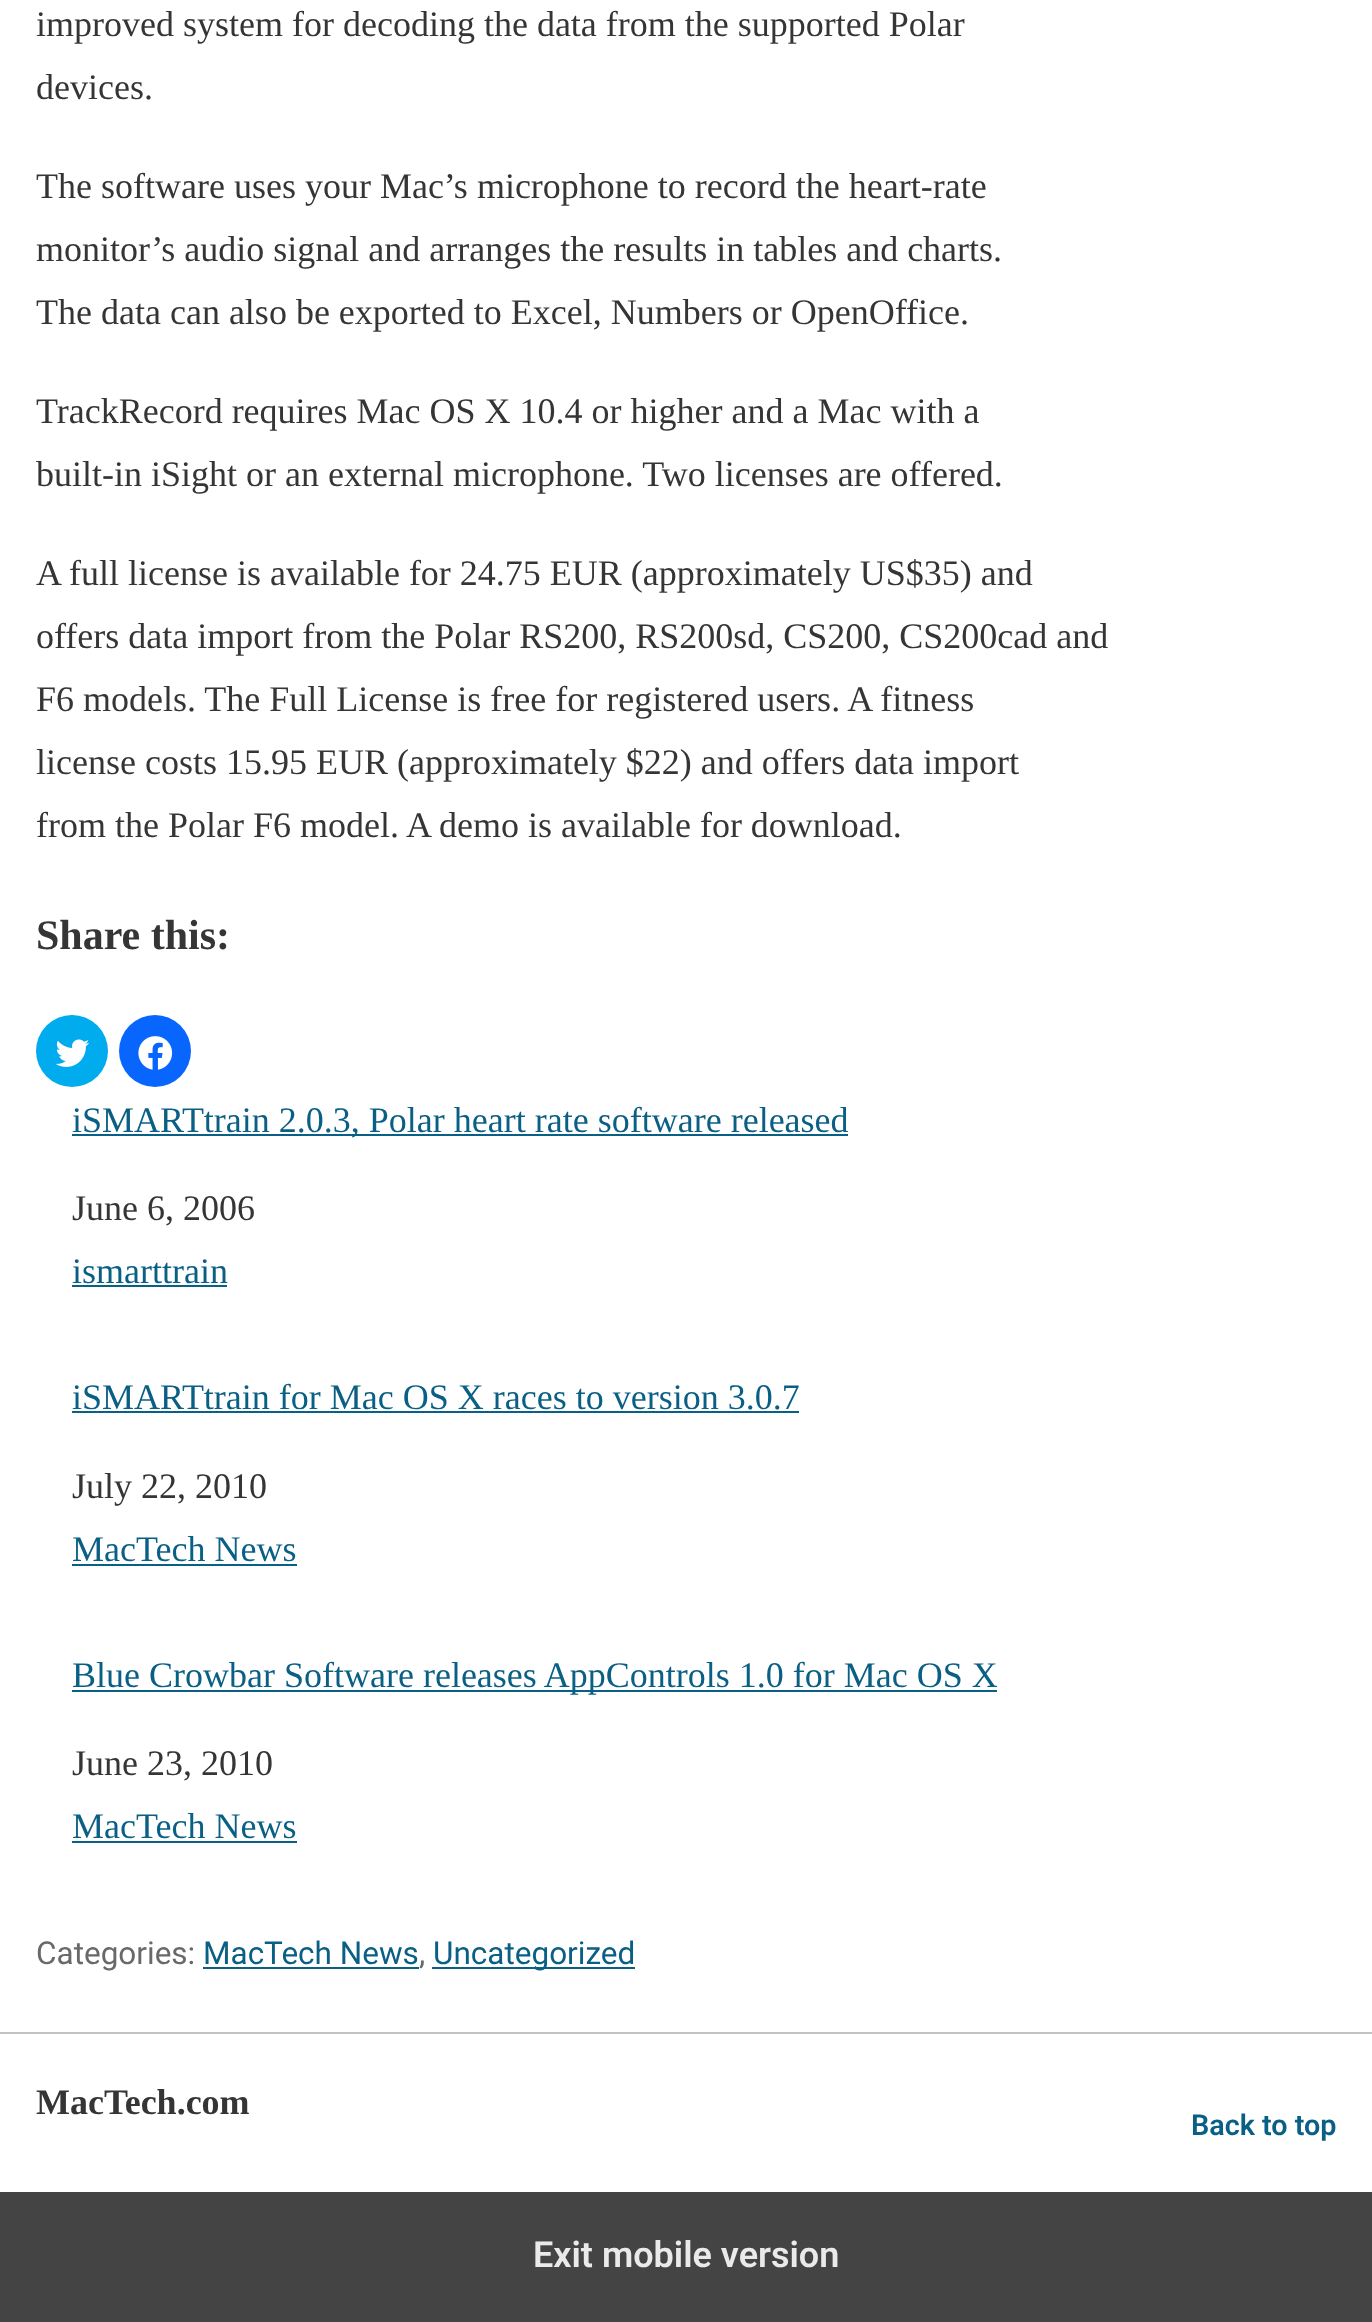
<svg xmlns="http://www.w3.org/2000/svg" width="1372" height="2322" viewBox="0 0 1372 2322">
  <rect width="100%" height="100%" fill="#ffffff"/>
  <text x="36" y="36" font-family="Liberation Serif" font-size="36" fill="#353535">improved system for decoding the data from the supported Polar</text>
  <text x="36" y="99" font-family="Liberation Serif" font-size="36" fill="#353535">devices.</text>
  <text x="36" y="198" font-family="Liberation Serif" font-size="36" fill="#353535">The software uses your Mac’s microphone to record the heart-rate</text>
  <text x="36" y="261" font-family="Liberation Serif" font-size="36" fill="#353535">monitor’s audio signal and arranges the results in tables and charts.</text>
  <text x="36" y="324" font-family="Liberation Serif" font-size="36" fill="#353535">The data can also be exported to Excel, Numbers or OpenOffice.</text>
  <text x="36" y="423" font-family="Liberation Serif" font-size="36" fill="#353535">TrackRecord requires Mac OS X 10.4 or higher and a Mac with a</text>
  <text x="36" y="486" font-family="Liberation Serif" font-size="36" fill="#353535">built-in iSight or an external microphone. Two licenses are offered.</text>
  <text x="36" y="585" font-family="Liberation Serif" font-size="36" fill="#353535">A full license is available for 24.75 EUR (approximately US$35) and</text>
  <text x="36" y="648" font-family="Liberation Serif" font-size="36" fill="#353535">offers data import from the Polar RS200, RS200sd, CS200, CS200cad and</text>
  <text x="36" y="711" font-family="Liberation Serif" font-size="36" fill="#353535">F6 models. The Full License is free for registered users. A fitness</text>
  <text x="36" y="774" font-family="Liberation Serif" font-size="36" fill="#353535">license costs 15.95 EUR (approximately $22) and offers data import</text>
  <text x="36" y="837" font-family="Liberation Serif" font-size="36" fill="#353535">from the Polar F6 model. A demo is available for download.</text>
  <text x="36" y="949" font-family="Liberation Serif" font-size="42" font-weight="bold" fill="#353535">Share this:</text>
  <circle cx="72" cy="1051" r="36" fill="#00acee"/>
  <image x="55" y="1039" width="35" height="28" href="img1.png"/>
  <circle cx="155" cy="1051" r="36" fill="#0866ff"/>
  <image x="138" y="1036" width="35" height="34" href="img2.png"/>
  <rect x="72" y="1134" width="776" height="2" fill="#0a5f85"/>
  <text x="72" y="1132" font-family="Liberation Serif" font-size="36" fill="#0a5f85">iSMARTtrain 2.0.3, Polar heart rate software released</text>
  <text x="72" y="1220" font-family="Liberation Serif" font-size="36" fill="#353535">June 6, 2006</text>
  <text x="72" y="1283" font-family="Liberation Serif" font-size="36" fill="#0a5f85">ismarttrain</text>
  <rect x="72" y="1285" width="155" height="2" fill="#0a5f85"/>
  <text x="72" y="1409" font-family="Liberation Serif" font-size="36" fill="#0a5f85">iSMARTtrain for Mac OS X races to version 3.0.7</text>
  <rect x="72" y="1411" width="727" height="2" fill="#0a5f85"/>
  <text x="72" y="1498" font-family="Liberation Serif" font-size="36" fill="#353535">July 22, 2010</text>
  <text x="72" y="1561" font-family="Liberation Serif" font-size="36" fill="#0a5f85">MacTech News</text>
  <rect x="72" y="1564" width="225" height="2" fill="#0a5f85"/>
  <rect x="72" y="1690" width="925" height="2" fill="#0a5f85"/>
  <text x="72" y="1687" font-family="Liberation Serif" font-size="36" fill="#0a5f85">Blue Crowbar Software releases AppControls 1.0 for Mac OS X</text>
  <text x="72" y="1775" font-family="Liberation Serif" font-size="36" fill="#353535">June 23, 2010</text>
  <text x="72" y="1838" font-family="Liberation Serif" font-size="36" fill="#0a5f85">MacTech News</text>
  <rect x="72" y="1841" width="225" height="2" fill="#0a5f85"/>
  <text x="36" y="1964" font-family="Roboto" font-size="31.5" fill="#696969">Categories:</text>
  <text x="203" y="1964" font-family="Roboto" font-size="31.5" fill="#0a5f85">MacTech News</text>
  <rect x="203" y="1967" width="216" height="2" fill="#0a5f85"/>
  <text x="419" y="1964" font-family="Roboto" font-size="31.5" fill="#696969">,</text>
  <rect x="432" y="1967" width="203" height="2" fill="#0a5f85"/>
  <text x="433" y="1964" font-family="Roboto" font-size="31.5" fill="#0a5f85">Uncategorized</text>
  <rect x="0" y="2032" width="1372" height="2" fill="#c2c2c2"/>
  <text x="36" y="2114" font-family="Liberation Serif" font-size="36" font-weight="bold" fill="#353535">MacTech.com</text>
  <text x="1191" y="2135" font-family="Roboto" font-size="28.75" font-weight="600" fill="#0a5f85">Back to top</text>
  <rect x="0" y="2192" width="1372" height="130" fill="#444444"/>
  <text x="533" y="2267" font-family="Roboto" font-size="36" font-weight="600" fill="#eaeaea">Exit mobile version</text>
</svg>
